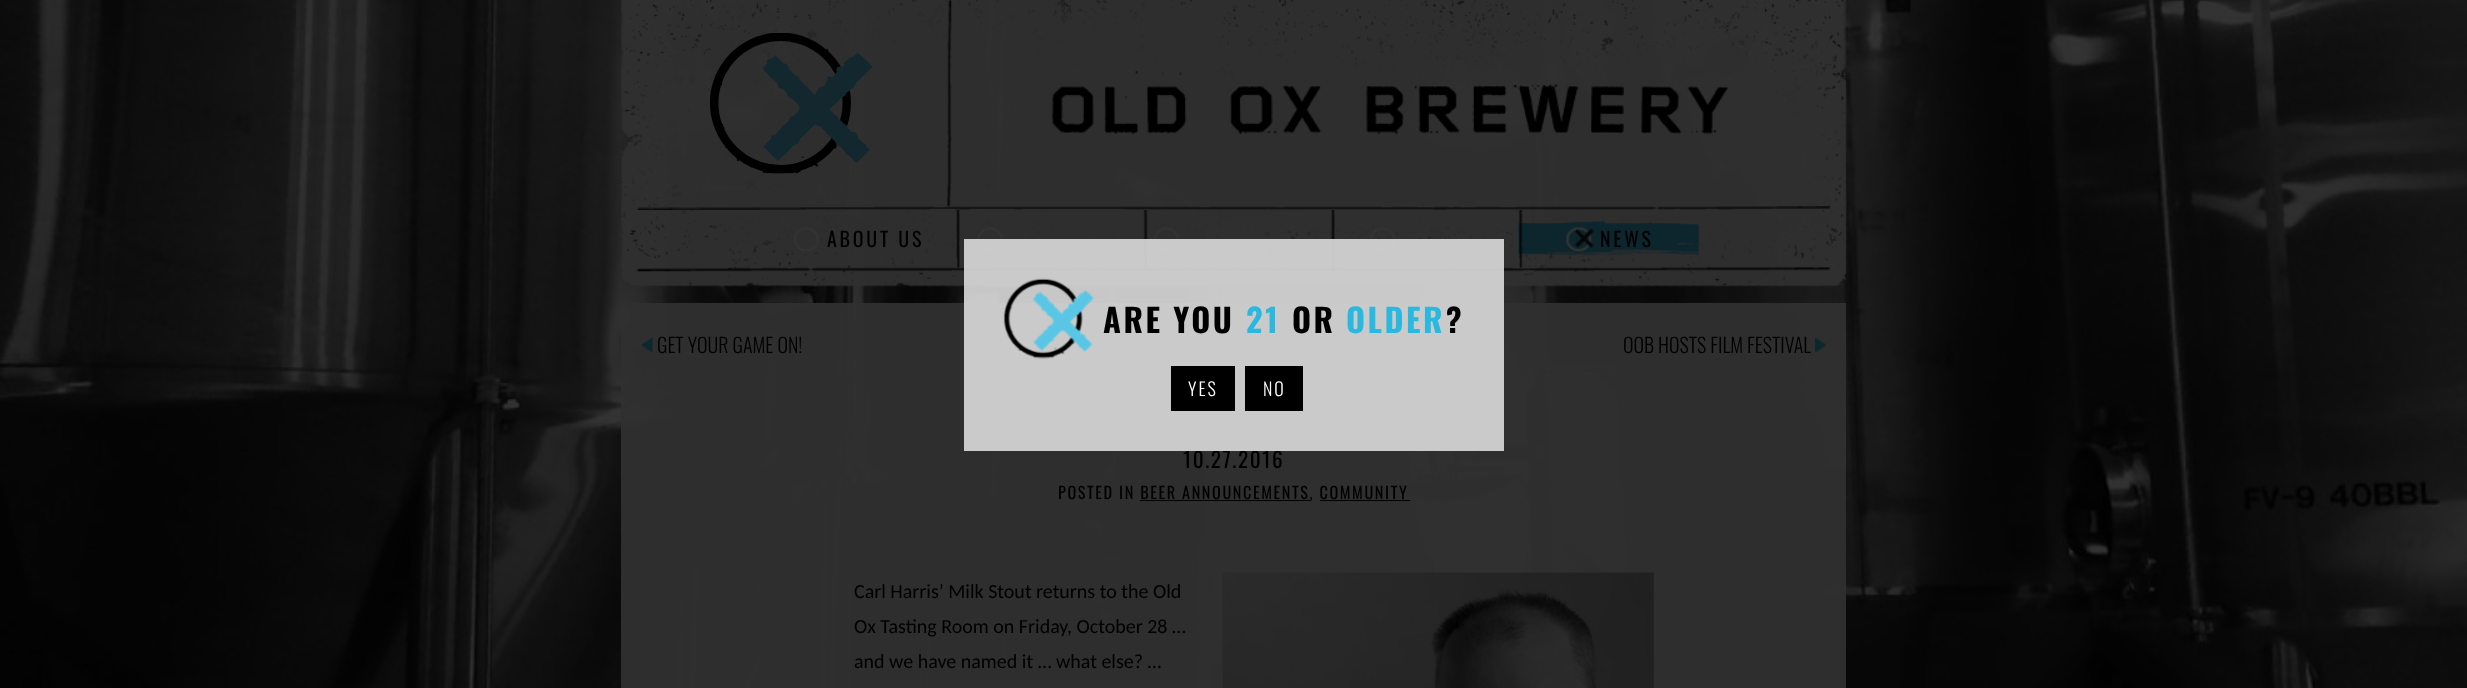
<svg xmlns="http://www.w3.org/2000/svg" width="2467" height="688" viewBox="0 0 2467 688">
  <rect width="100%" height="100%" fill="#ffffff"/>
  <image x="0" y="0" width="2467" height="688" href="img1.png"/>
  <image x="621" y="0" width="1226" height="287" href="img2.png"/>
  <image x="636" y="206" width="1195" height="66" href="img6.png"/>
  <image x="947" y="0" width="5" height="207" href="img3.png"/>
  <image x="710" y="33" width="162" height="141" href="img4.png"/>
  <image x="1052" y="71" width="676" height="63" href="img5.png"/>
  <image x="793" y="227" width="26" height="25" href="img7.png"/>
  <text x="827" y="247" font-family="Oswald" font-size="20" letter-spacing="2.75" fill="#000000">ABOUT US</text>
  <image x="956" y="210" width="4" height="58" href="img8.png"/>
  <image x="977" y="227" width="26" height="25" href="img9.png"/>
  <image x="1143" y="210" width="5" height="58" href="img10.png"/>
  <image x="1153" y="227" width="26" height="25" href="img11.png"/>
  <image x="1331" y="210" width="4" height="58" href="img12.png"/>
  <image x="1370" y="227" width="25" height="25" href="img13.png"/>
  <image x="1518" y="221" width="181" height="35" href="img14.png"/>
  <image x="1518" y="210" width="5" height="58" href="img15.png"/>
  <image x="1566" y="227" width="28" height="25" href="img16.png"/>
  <text x="1600" y="247" font-family="Oswald" font-size="20" letter-spacing="2.75" fill="#000000">NEWS</text>
  <rect x="621" y="303" width="1225" height="385" fill="#303030" fill-opacity="0.96"/>
  <text x="1183" y="468" font-family="Oswald" font-size="21.25" letter-spacing="1.6" fill="#000000">10.27.2016</text>
  <rect x="964" y="239" width="540" height="212" fill="#dcdcdc" fill-opacity="0.9"/>
  <image x="1003" y="278" width="91" height="81" href="img17.png"/>
  <text x="1103" y="333" font-family="Oswald" font-size="32.5" font-weight="bold" letter-spacing="2.5" fill="#000000">ARE YOU</text>
  <text x="1246" y="333" font-family="Oswald" font-size="32.5" font-weight="bold" letter-spacing="2.5" fill="#28b8e0">21</text>
  <text x="1292" y="333" font-family="Oswald" font-size="32.5" font-weight="bold" letter-spacing="2.5" fill="#000000">OR</text>
  <text x="1346" y="333" font-family="Oswald" font-size="32.5" font-weight="bold" letter-spacing="2.5" fill="#28b8e0">OLDER</text>
  <text x="1446" y="333" font-family="Oswald" font-size="32.5" font-weight="bold" letter-spacing="2.5" fill="#000000">?</text>
  <rect x="1171" y="366" width="64" height="45" fill="#000000"/>
  <text x="1188" y="396" font-family="Oswald" font-size="18" font-weight="300" letter-spacing="2" fill="#ffffff">YES</text>
  <rect x="1245" y="366" width="58" height="45" fill="#000000"/>
  <text x="1263" y="396" font-family="Oswald" font-size="18" font-weight="300" letter-spacing="2" fill="#ffffff">NO</text>
  <image x="641" y="337" width="12" height="16" href="img18.png"/>
  <text x="657" y="353" font-family="Oswald" font-size="20" font-weight="300" fill="#000000">GET YOUR GAME ON!</text>
  <text x="1623" y="353" font-family="Oswald" font-size="20" font-weight="300" fill="#000000">OOB HOSTS FILM FESTIVAL</text>
  <image x="1815" y="337" width="12" height="16" href="img19.png"/>
  <text x="1058" y="499" font-family="Oswald" font-size="16.25" letter-spacing="1.6" fill="#000000">POSTED IN BEER ANNOUNCEMENTS, COMMUNITY</text>
  <rect x="1140" y="500" width="170" height="1" fill="#000000"/>
  <rect x="1320" y="500" width="90" height="1" fill="#000000"/>
  <text x="854" y="598" font-family="Carlito" font-size="20" fill="#000000">Carl Harris’ Milk Stout returns to the Old</text>
  <image x="1222" y="572" width="432" height="116" href="img20.png"/>
  <text x="854" y="633" font-family="Carlito" font-size="20" fill="#000000">Ox Tasting Room on Friday, October 28 …</text>
  <text x="854" y="668" font-family="Carlito" font-size="20" fill="#000000">and we have named it … what else? …</text>
</svg>
